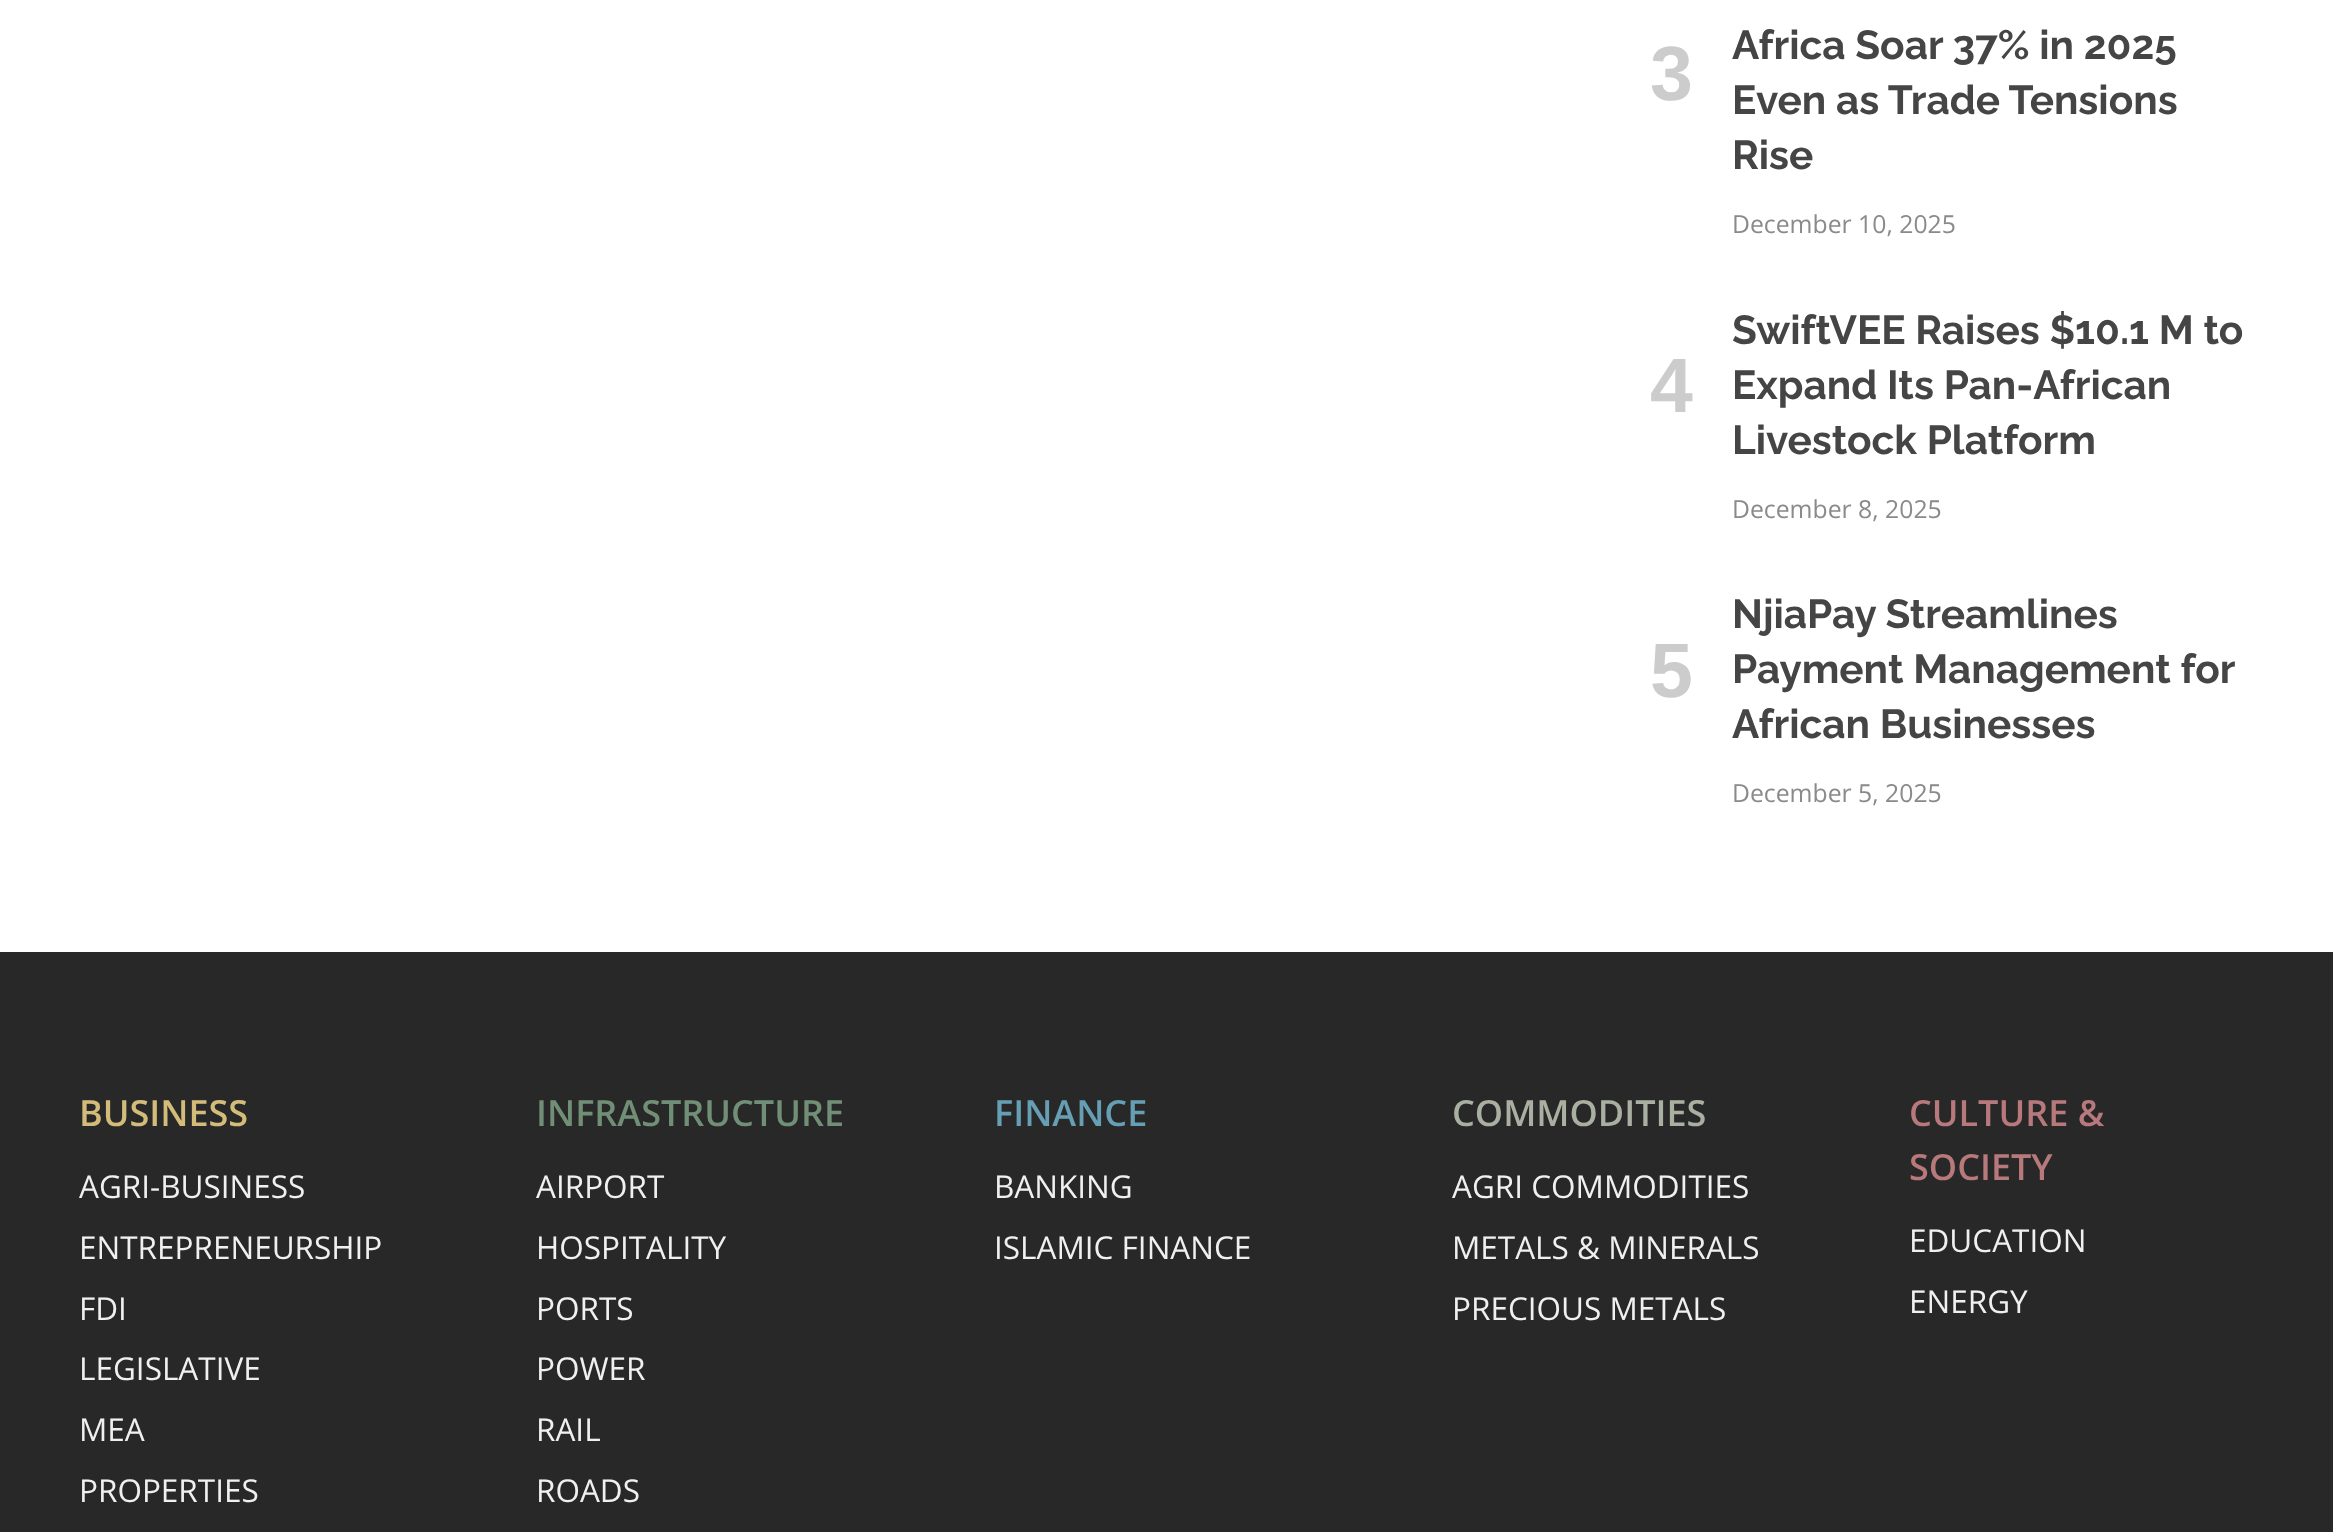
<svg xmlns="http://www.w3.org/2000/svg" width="2333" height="1532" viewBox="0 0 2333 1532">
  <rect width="100%" height="100%" fill="#ffffff"/>
  <text x="1650" y="100" font-family="Liberation Sans" font-size="77" font-weight="bold" fill="#cccccc">3</text>
  <text x="1732" y="59" font-family="Raleway" font-size="40.5" font-weight="bold" fill="#454545">Africa Soar 37% in 2025</text>
  <text x="1732" y="114" font-family="Raleway" font-size="40.5" font-weight="bold" fill="#454545">Even as Trade Tensions</text>
  <text x="1732" y="169" font-family="Raleway" font-size="40.5" font-weight="bold" fill="#454545">Rise</text>
  <text x="1732" y="233" font-family="Open Sans" font-size="24.75" fill="#8a8a8a">December 10, 2025</text>
  <text x="1650" y="412" font-family="Liberation Sans" font-size="77" font-weight="bold" fill="#cccccc">4</text>
  <text x="1732" y="344" font-family="Raleway" font-size="40.5" font-weight="bold" fill="#454545">SwiftVEE Raises $10.1 M to</text>
  <text x="1732" y="399" font-family="Raleway" font-size="40.5" font-weight="bold" fill="#454545">Expand Its Pan-African</text>
  <text x="1732" y="454" font-family="Raleway" font-size="40.5" font-weight="bold" fill="#454545">Livestock Platform</text>
  <text x="1732" y="518" font-family="Open Sans" font-size="24.75" fill="#8a8a8a">December 8, 2025</text>
  <text x="1650" y="697" font-family="Liberation Sans" font-size="77" font-weight="bold" fill="#cccccc">5</text>
  <text x="1732" y="628" font-family="Raleway" font-size="40.5" font-weight="bold" fill="#454545">NjiaPay Streamlines</text>
  <text x="1732" y="683" font-family="Raleway" font-size="40.5" font-weight="bold" fill="#454545">Payment Management for</text>
  <text x="1732" y="738" font-family="Raleway" font-size="40.5" font-weight="bold" fill="#454545">African Businesses</text>
  <text x="1732" y="802" font-family="Open Sans" font-size="24.75" fill="#8a8a8a">December 5, 2025</text>
  <rect x="0" y="952" width="2333" height="580" fill="#282828"/>
  <text x="79" y="1126" font-family="Open Sans" font-size="36" font-weight="600" fill="#d3bb7a">BUSINESS</text>
  <text x="79" y="1198" font-family="Open Sans" font-size="31.5" fill="#f0f0f0">AGRI-BUSINESS</text>
  <text x="79" y="1259" font-family="Open Sans" font-size="31.5" fill="#f0f0f0">ENTREPRENEURSHIP</text>
  <text x="79" y="1320" font-family="Open Sans" font-size="31.5" fill="#f0f0f0">FDI</text>
  <text x="79" y="1380" font-family="Open Sans" font-size="31.5" fill="#f0f0f0">LEGISLATIVE</text>
  <text x="79" y="1441" font-family="Open Sans" font-size="31.5" fill="#f0f0f0">MEA</text>
  <text x="79" y="1502" font-family="Open Sans" font-size="31.5" fill="#f0f0f0">PROPERTIES</text>
  <text x="536" y="1126" font-family="Open Sans" font-size="36" font-weight="600" fill="#718f77">INFRASTRUCTURE</text>
  <text x="536" y="1198" font-family="Open Sans" font-size="31.5" fill="#f0f0f0">AIRPORT</text>
  <text x="536" y="1259" font-family="Open Sans" font-size="31.5" fill="#f0f0f0">HOSPITALITY</text>
  <text x="536" y="1320" font-family="Open Sans" font-size="31.5" fill="#f0f0f0">PORTS</text>
  <text x="536" y="1380" font-family="Open Sans" font-size="31.5" fill="#f0f0f0">POWER</text>
  <text x="536" y="1441" font-family="Open Sans" font-size="31.5" fill="#f0f0f0">RAIL</text>
  <text x="536" y="1502" font-family="Open Sans" font-size="31.5" fill="#f0f0f0">ROADS</text>
  <text x="994" y="1126" font-family="Open Sans" font-size="36" font-weight="600" fill="#669eb4">FINANCE</text>
  <text x="994" y="1198" font-family="Open Sans" font-size="31.5" fill="#f0f0f0">BANKING</text>
  <text x="994" y="1259" font-family="Open Sans" font-size="31.5" fill="#f0f0f0">ISLAMIC FINANCE</text>
  <text x="1452" y="1126" font-family="Open Sans" font-size="36" font-weight="600" fill="#a9b0a1">COMMODITIES</text>
  <text x="1452" y="1198" font-family="Open Sans" font-size="31.5" fill="#f0f0f0">AGRI COMMODITIES</text>
  <text x="1452" y="1259" font-family="Open Sans" font-size="31.5" fill="#f0f0f0">METALS &amp; MINERALS</text>
  <text x="1452" y="1320" font-family="Open Sans" font-size="31.5" fill="#f0f0f0">PRECIOUS METALS</text>
  <text x="1909" y="1126" font-family="Open Sans" font-size="36" font-weight="600" fill="#b8797d">CULTURE &amp;</text>
  <text x="1909" y="1180" font-family="Open Sans" font-size="36" font-weight="600" fill="#b8797d">SOCIETY</text>
  <text x="1909" y="1252" font-family="Open Sans" font-size="31.5" fill="#f0f0f0">EDUCATION</text>
  <text x="1909" y="1313" font-family="Open Sans" font-size="31.5" fill="#f0f0f0">ENERGY</text>
</svg>
